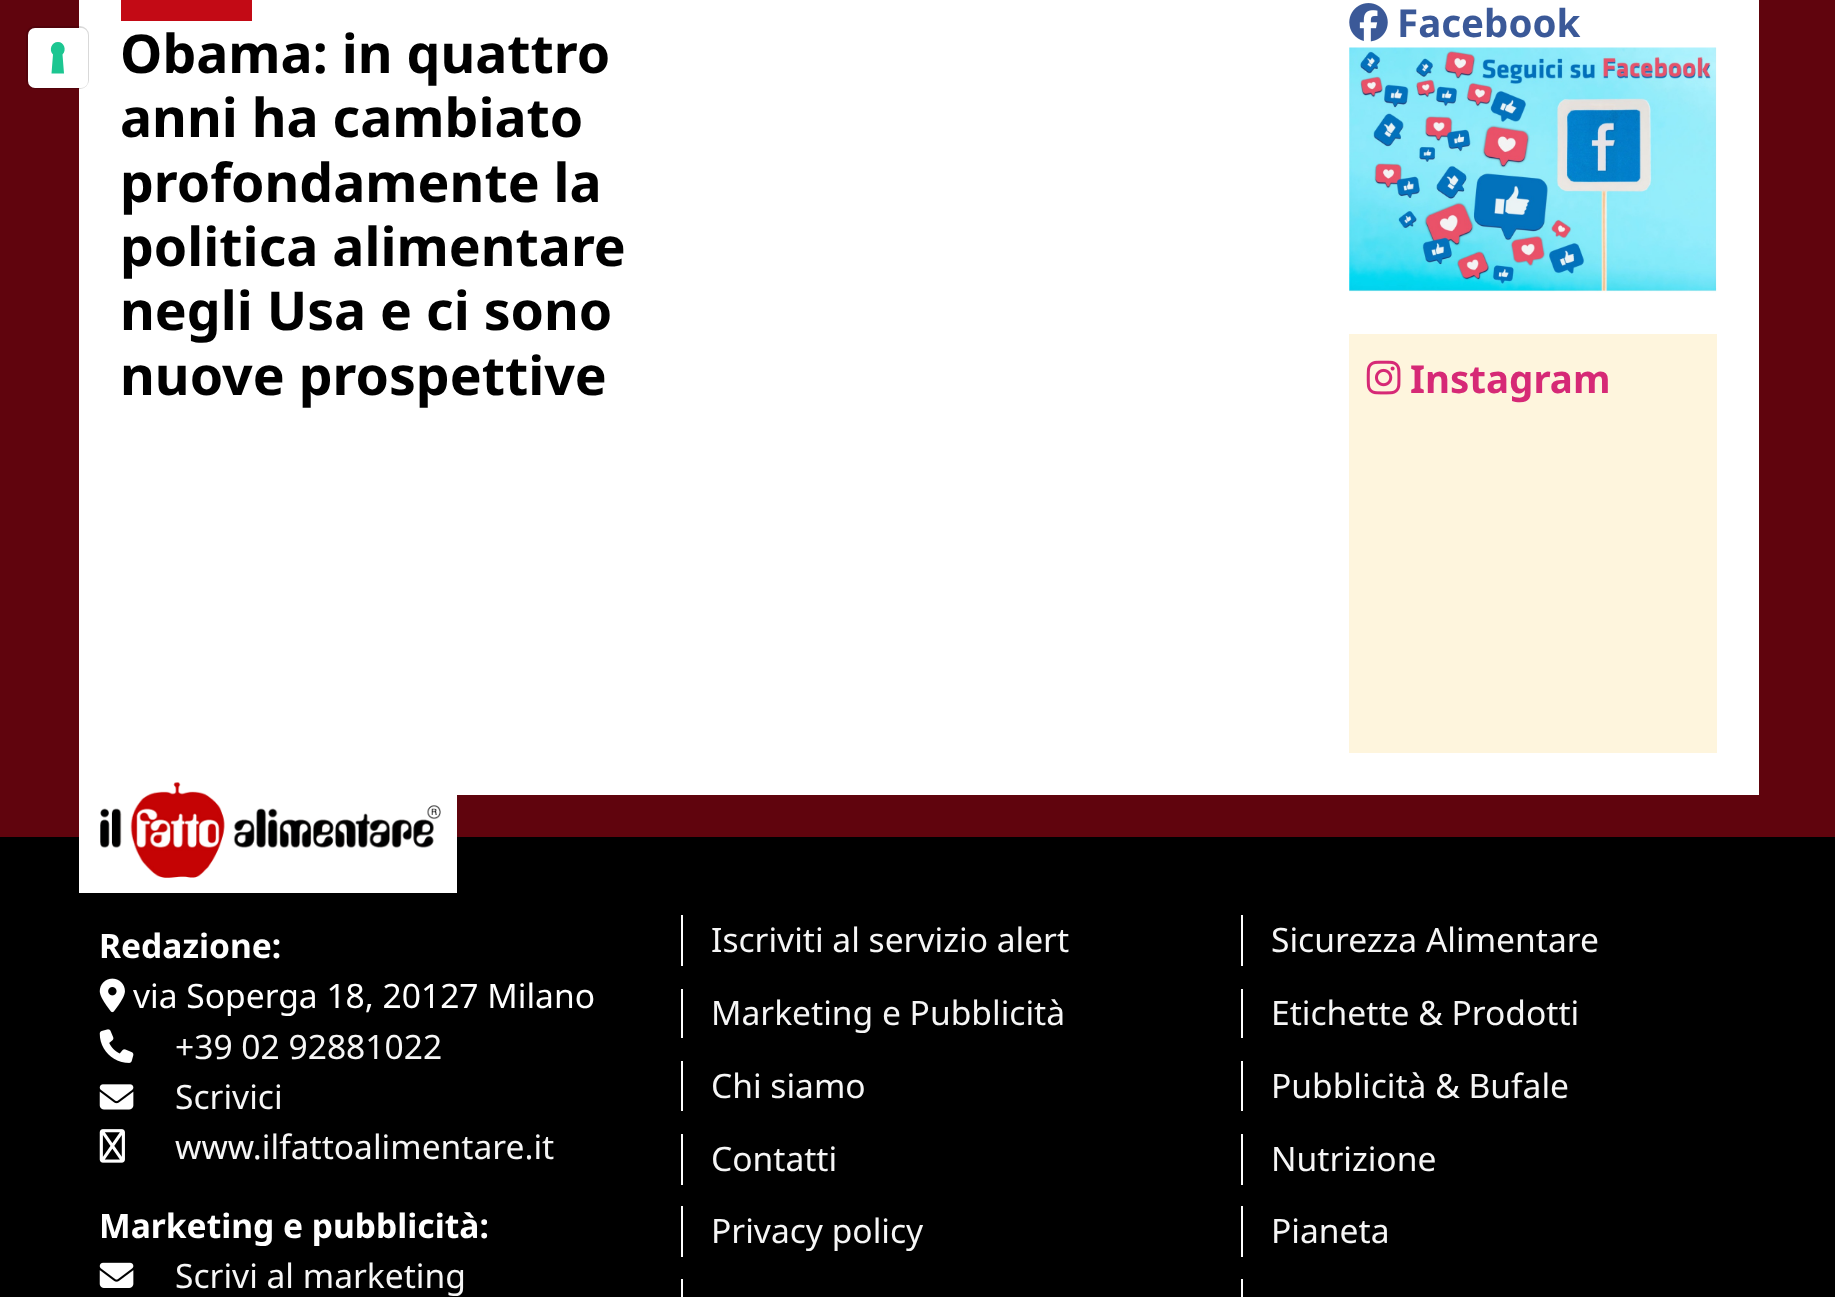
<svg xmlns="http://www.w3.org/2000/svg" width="1835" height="1297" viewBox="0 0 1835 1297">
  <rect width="100%" height="100%" fill="#60040d"/>
  <rect x="79" y="0" width="1680" height="795" fill="#ffffff"/>
  <rect x="27" y="27" width="61" height="61" rx="8" fill="none" stroke="#000000" stroke-opacity="0.15" stroke-width="2"/>
  <rect x="28" y="28" width="60" height="60" rx="7" fill="#ffffff"/>
  <path d="M58 42C64 42 67 50 62.5 54.5L64 73.5H51.5L53 54.5C48.5 50 51.5 42 58 42Z" fill="#1cc691" fill-rule="evenodd"/>
  <rect x="121" y="0" width="131" height="21" fill="#c30a15"/>
  <text x="120" y="73" font-family="Noto Sans" font-size="53.6" font-weight="bold" fill="#000000">Obama: in quattro</text>
  <text x="120" y="137" font-family="Noto Sans" font-size="53.6" font-weight="bold" fill="#000000">anni ha cambiato</text>
  <text x="120" y="202" font-family="Noto Sans" font-size="53.6" font-weight="bold" fill="#000000">profondamente la</text>
  <text x="120" y="266" font-family="Noto Sans" font-size="53.6" font-weight="bold" fill="#000000">politica alimentare</text>
  <text x="120" y="330" font-family="Noto Sans" font-size="53.6" font-weight="bold" fill="#000000">negli Usa e ci sono</text>
  <text x="120" y="395" font-family="Noto Sans" font-size="53.6" font-weight="bold" fill="#000000">nuove prospettive</text>
  <image x="1349" y="3" width="39" height="39" href="img1.png"/>
  <text x="1397" y="37" font-family="Noto Sans" font-size="38.5" font-weight="bold" fill="#3b5998">Facebook</text>
  <image x="1349" y="47" width="368" height="246" href="img2.png"/>
  <rect x="1349" y="334" width="368" height="419" fill="#fef5dd"/>
  <image x="1366" y="360" width="35" height="35" href="img3.png"/>
  <text x="1410" y="393" font-family="Noto Sans" font-size="38.5" font-weight="bold" fill="#d62976">Instagram</text>
  <rect x="0" y="837" width="1835" height="460" fill="#000000"/>
  <rect x="79" y="795" width="378" height="98" fill="#ffffff"/>
  <image x="100" y="782" width="341" height="96" href="img4.png"/>
  <text x="99" y="958" font-family="Noto Sans" font-size="33.6" font-weight="bold" fill="#ffffff">Redazione:</text>
  <image x="99" y="978" width="26" height="35" href="img5.png"/>
  <text x="133" y="1008" font-family="Noto Sans" font-size="33.6" fill="#ffffff">via Soperga 18, 20127 Milano</text>
  <image x="99" y="1029" width="35" height="34" href="img6.png"/>
  <text x="175" y="1059" font-family="Noto Sans" font-size="33.6" fill="#f6f6f6">+39 02 92881022</text>
  <image x="99" y="1084" width="35" height="26" href="img7.png"/>
  <text x="175" y="1109" font-family="Noto Sans" font-size="33.6" fill="#f6f6f6">Scrivici</text>
  <image x="99" y="1129" width="26" height="34" href="img8.png"/>
  <text x="175" y="1159" font-family="Noto Sans" font-size="33.6" fill="#f6f6f6">www.ilfattoalimentare.it</text>
  <text x="99" y="1238" font-family="Noto Sans" font-size="33.6" font-weight="bold" fill="#ffffff">Marketing e pubblicità:</text>
  <image x="99" y="1262" width="35" height="26" href="img9.png"/>
  <text x="175" y="1288" font-family="Noto Sans" font-size="33.6" fill="#f6f6f6">Scrivi al marketing</text>
  <rect x="681" y="915" width="2" height="51" fill="#ffffff"/>
  <text x="711" y="952" font-family="Noto Sans" font-size="33.6" fill="#f6f6f6">Iscriviti al servizio alert</text>
  <rect x="681" y="989" width="2" height="49" fill="#ffffff"/>
  <text x="711" y="1025" font-family="Noto Sans" font-size="33.6" fill="#f6f6f6">Marketing e Pubblicità</text>
  <rect x="681" y="1061" width="2" height="50" fill="#ffffff"/>
  <text x="711" y="1098" font-family="Noto Sans" font-size="33.6" fill="#f6f6f6">Chi siamo</text>
  <rect x="681" y="1134" width="2" height="51" fill="#ffffff"/>
  <text x="711" y="1171" font-family="Noto Sans" font-size="33.6" fill="#f6f6f6">Contatti</text>
  <rect x="681" y="1206" width="2" height="51" fill="#ffffff"/>
  <text x="711" y="1243" font-family="Noto Sans" font-size="33.6" fill="#f6f6f6">Privacy policy</text>
  <rect x="681" y="1279" width="2" height="18" fill="#ffffff"/>
  <rect x="1241" y="915" width="2" height="51" fill="#ffffff"/>
  <text x="1271" y="952" font-family="Noto Sans" font-size="33.6" fill="#f6f6f6">Sicurezza Alimentare</text>
  <rect x="1241" y="989" width="2" height="49" fill="#ffffff"/>
  <text x="1271" y="1025" font-family="Noto Sans" font-size="33.6" fill="#f6f6f6">Etichette &amp; Prodotti</text>
  <rect x="1241" y="1061" width="2" height="50" fill="#ffffff"/>
  <text x="1271" y="1098" font-family="Noto Sans" font-size="33.6" fill="#f6f6f6">Pubblicità &amp; Bufale</text>
  <rect x="1241" y="1134" width="2" height="51" fill="#ffffff"/>
  <text x="1271" y="1171" font-family="Noto Sans" font-size="33.6" fill="#f6f6f6">Nutrizione</text>
  <rect x="1241" y="1206" width="2" height="51" fill="#ffffff"/>
  <text x="1271" y="1243" font-family="Noto Sans" font-size="33.6" fill="#f6f6f6">Pianeta</text>
  <rect x="1241" y="1279" width="2" height="18" fill="#ffffff"/>
</svg>
